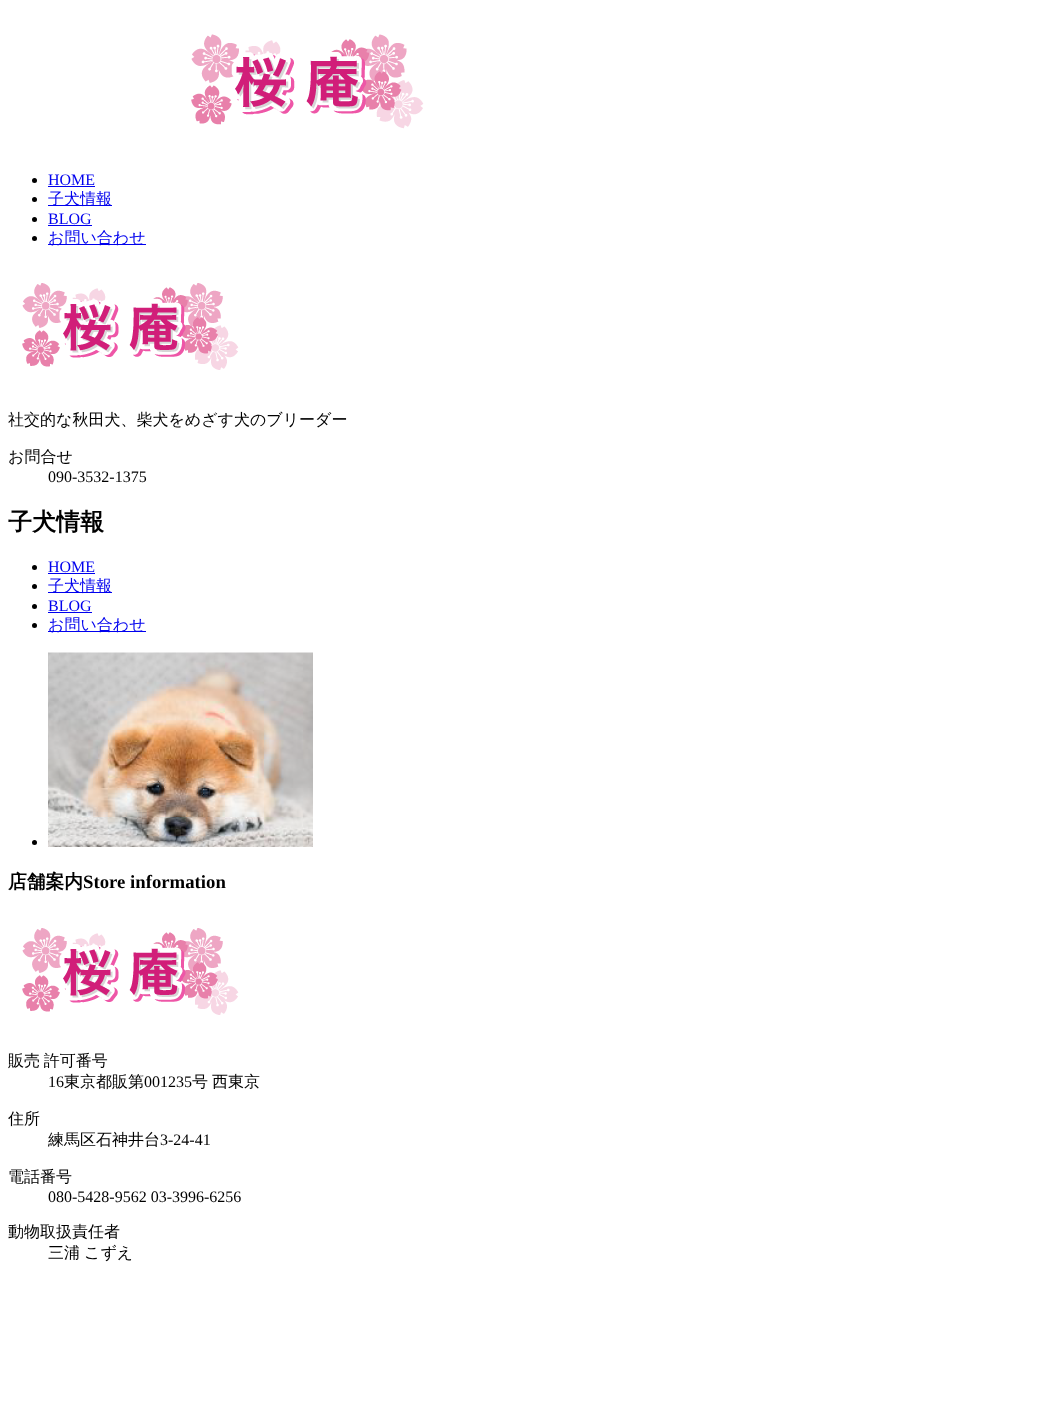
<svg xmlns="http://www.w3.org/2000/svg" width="1049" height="1418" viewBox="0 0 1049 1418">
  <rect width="100%" height="100%" fill="#ffffff"/>
  <image x="191" y="34" width="233" height="95" href="img1.png"/>
  <circle cx="34.5" cy="180.5" r="2.5" fill="#000000"/>
  <text x="48" y="185" font-family="Liberation Serif" font-size="16" fill="#0000ee">HOME</text>
  <rect x="48" y="186" width="47" height="1" fill="#0000ee"/>
  <circle cx="34.5" cy="199.5" r="2.5" fill="#000000"/>
  <rect x="48" y="205" width="64" height="1" fill="#0000ee"/>
  <text x="48" y="204" font-family="WenQuanYi Zen Hei" font-size="16" font-weight="500" fill="#0000ee">子犬情報</text>
  <circle cx="34.5" cy="219.5" r="2.5" fill="#000000"/>
  <text x="48" y="224" font-family="Liberation Serif" font-size="16" fill="#0000ee">BLOG</text>
  <rect x="48" y="225" width="44" height="1" fill="#0000ee"/>
  <circle cx="34.5" cy="238.5" r="2.5" fill="#000000"/>
  <rect x="48" y="244" width="98" height="1" fill="#0000ee"/>
  <text x="48" y="243" font-family="WenQuanYi Zen Hei" font-size="16" font-weight="500" fill="#0000ee">お問い合わせ</text>
  <image x="22" y="283" width="217" height="87" href="img2.png"/>
  <text x="8" y="425" font-family="WenQuanYi Zen Hei" font-size="16" font-weight="500" fill="#000000">社交的な秋田犬、柴犬をめざす犬のブリーダー</text>
  <text x="8" y="462" font-family="WenQuanYi Zen Hei" font-size="16" font-weight="500" fill="#000000">お問合せ</text>
  <text x="48" y="482" font-family="Liberation Serif" font-size="16" fill="#000000">090-3532-1375</text>
  <text x="8" y="530" font-family="WenQuanYi Zen Hei" font-size="24" font-weight="bold" fill="#000000">子犬情報</text>
  <circle cx="34.5" cy="567.5" r="2.5" fill="#000000"/>
  <text x="48" y="572" font-family="Liberation Serif" font-size="16" fill="#0000ee">HOME</text>
  <rect x="48" y="573" width="47" height="1" fill="#0000ee"/>
  <circle cx="34.5" cy="586.5" r="2.5" fill="#000000"/>
  <rect x="48" y="592" width="64" height="1" fill="#0000ee"/>
  <text x="48" y="591" font-family="WenQuanYi Zen Hei" font-size="16" font-weight="500" fill="#0000ee">子犬情報</text>
  <circle cx="34.5" cy="606.5" r="2.5" fill="#000000"/>
  <text x="48" y="611" font-family="Liberation Serif" font-size="16" fill="#0000ee">BLOG</text>
  <rect x="48" y="612" width="44" height="1" fill="#0000ee"/>
  <circle cx="34.5" cy="625.5" r="2.5" fill="#000000"/>
  <rect x="48" y="631" width="98" height="1" fill="#0000ee"/>
  <text x="48" y="630" font-family="WenQuanYi Zen Hei" font-size="16" font-weight="500" fill="#0000ee">お問い合わせ</text>
  <circle cx="34.5" cy="842.5" r="2.5" fill="#000000"/>
  <image x="48" y="652" width="265" height="195" href="img3.png"/>
  <text x="8" y="888" font-family="WenQuanYi Zen Hei" font-size="18.75" font-weight="bold" fill="#000000">店舗案内</text>
  <text x="83" y="888" font-family="Liberation Serif" font-size="18.75" font-weight="bold" fill="#000000">Store information</text>
  <image x="22" y="928" width="217" height="87" href="img2.png"/>
  <text x="8" y="1066" word-spacing="-1" font-family="WenQuanYi Zen Hei" font-size="16" font-weight="500" fill="#000000">販売 許可番号</text>
  <text x="48" y="1087" font-family="Liberation Serif" font-size="16" fill="#000000">16</text>
  <text x="64" y="1087" font-family="WenQuanYi Zen Hei" font-size="16" font-weight="500" fill="#000000">東京都販第</text>
  <text x="144" y="1087" font-family="Liberation Serif" font-size="16" fill="#000000">001235</text>
  <text x="192" y="1087" font-family="WenQuanYi Zen Hei" font-size="16" font-weight="500" fill="#000000">号</text>
  <text x="212" y="1087" font-family="WenQuanYi Zen Hei" font-size="16" font-weight="500" fill="#000000">西東京</text>
  <text x="8" y="1124" font-family="WenQuanYi Zen Hei" font-size="16" font-weight="500" fill="#000000">住所</text>
  <text x="48" y="1145" font-family="WenQuanYi Zen Hei" font-size="16" font-weight="500" fill="#000000">練馬区石神井台</text>
  <text x="160" y="1145" font-family="Liberation Serif" font-size="16" fill="#000000">3-24-41</text>
  <text x="8" y="1182" font-family="WenQuanYi Zen Hei" font-size="16" font-weight="500" fill="#000000">電話番号</text>
  <text x="48" y="1202" font-family="Liberation Serif" font-size="16" fill="#000000">080-5428-9562 03-3996-6256</text>
  <text x="8" y="1237" font-family="WenQuanYi Zen Hei" font-size="16" font-weight="500" fill="#000000">動物取扱責任者</text>
  <text x="48" y="1258" font-family="WenQuanYi Zen Hei" font-size="16" font-weight="500" fill="#000000">三浦</text>
  <text x="84" y="1258" font-family="WenQuanYi Zen Hei" font-size="16" font-weight="500" fill="#000000">こずえ</text>
</svg>
